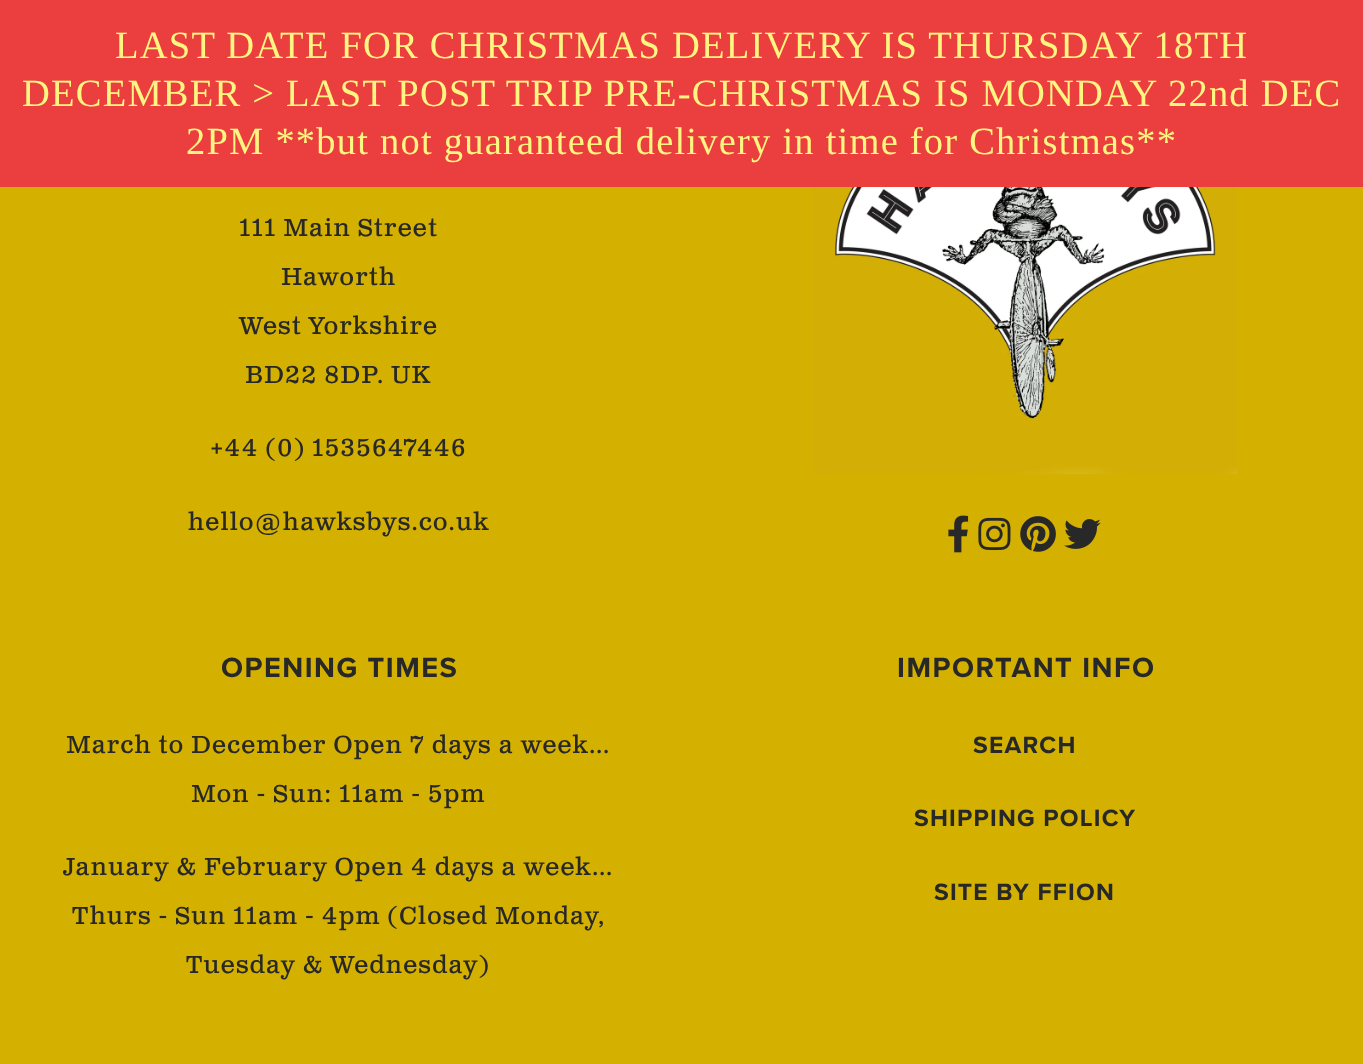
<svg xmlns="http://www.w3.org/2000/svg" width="1363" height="1064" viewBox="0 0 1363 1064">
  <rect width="100%" height="100%" fill="#d4b100"/>
  <rect x="0" y="0" width="1363" height="187" fill="#eb3e3e"/>
  <text x="115" y="58" font-family="Liberation Serif" font-size="38.5" letter-spacing="1.22" fill="#fff681">LAST DATE FOR CHRISTMAS DELIVERY IS THURSDAY 18TH</text>
  <text x="22" y="106" font-family="Liberation Serif" font-size="38.5" letter-spacing="1.22" fill="#fff681">DECEMBER &gt; LAST POST TRIP PRE-CHRISTMAS IS MONDAY 22nd DEC</text>
  <text x="186" y="154" font-family="Liberation Serif" font-size="38.5" letter-spacing="1.22" fill="#fff681">2PM **but not guaranteed delivery in time for Christmas**</text>
  <text x="239" y="236" font-family="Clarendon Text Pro" font-size="24.5" letter-spacing="1.22" fill="#282828">111 Main Street</text>
  <text x="281" y="285" font-family="Clarendon Text Pro" font-size="24.5" letter-spacing="1.22" fill="#282828">Haworth</text>
  <text x="239" y="334" font-family="Clarendon Text Pro" font-size="24.5" letter-spacing="1.22" fill="#282828">West Yorkshire</text>
  <text x="245" y="383" font-family="Clarendon Text Pro" font-size="24.5" letter-spacing="1.22" fill="#282828">BD22 8DP. UK</text>
  <text x="210" y="456" font-family="Clarendon Text Pro" font-size="24.5" letter-spacing="1.22" fill="#282828">+44 (0) 1535647446</text>
  <text x="188" y="530" font-family="Clarendon Text Pro" font-size="24.5" letter-spacing="1.22" fill="#282828">hello@hawksbys.co.uk</text>
  <image x="812" y="187" width="426" height="287" href="img1.png"/>
  <image x="948" y="515" width="21" height="38" href="img2.png"/>
  <image x="978" y="517" width="33" height="34" href="img3.png"/>
  <image x="1020" y="516" width="36" height="36" href="img4.png"/>
  <image x="1064" y="519" width="37" height="30" href="img5.png"/>
  <text x="221" y="677" font-family="Proxima Nova" font-size="28.75" font-weight="bold" letter-spacing="1.5" fill="#282828">OPENING TIMES</text>
  <text x="66" y="753" font-family="Clarendon Text Pro" font-size="24.5" letter-spacing="1.22" fill="#282828">March to December Open 7 days a week…</text>
  <text x="191" y="802" font-family="Clarendon Text Pro" font-size="24.5" letter-spacing="1.22" fill="#282828">Mon - Sun: 11am - 5pm</text>
  <text x="63" y="875" font-family="Clarendon Text Pro" font-size="24.5" letter-spacing="1.22" fill="#282828">January &amp; February Open 4 days a week…</text>
  <text x="72" y="924" font-family="Clarendon Text Pro" font-size="24.5" letter-spacing="1.22" fill="#282828">Thurs - Sun 11am - 4pm (Closed Monday,</text>
  <text x="186" y="973" font-family="Clarendon Text Pro" font-size="24.5" letter-spacing="1.22" fill="#282828">Tuesday &amp; Wednesday)</text>
  <text x="897" y="677" font-family="Proxima Nova" font-size="28.75" font-weight="bold" letter-spacing="1.5" fill="#282828">IMPORTANT INFO</text>
  <text x="973" y="753" font-family="Proxima Nova" font-size="24.5" font-weight="bold" letter-spacing="1.22" fill="#282828">SEARCH</text>
  <text x="914" y="826" font-family="Proxima Nova" font-size="24.5" font-weight="bold" letter-spacing="1.22" fill="#282828">SHIPPING POLICY</text>
  <text x="934" y="900" font-family="Proxima Nova" font-size="24.5" font-weight="bold" letter-spacing="1.22" fill="#282828">SITE BY FFION</text>
</svg>
